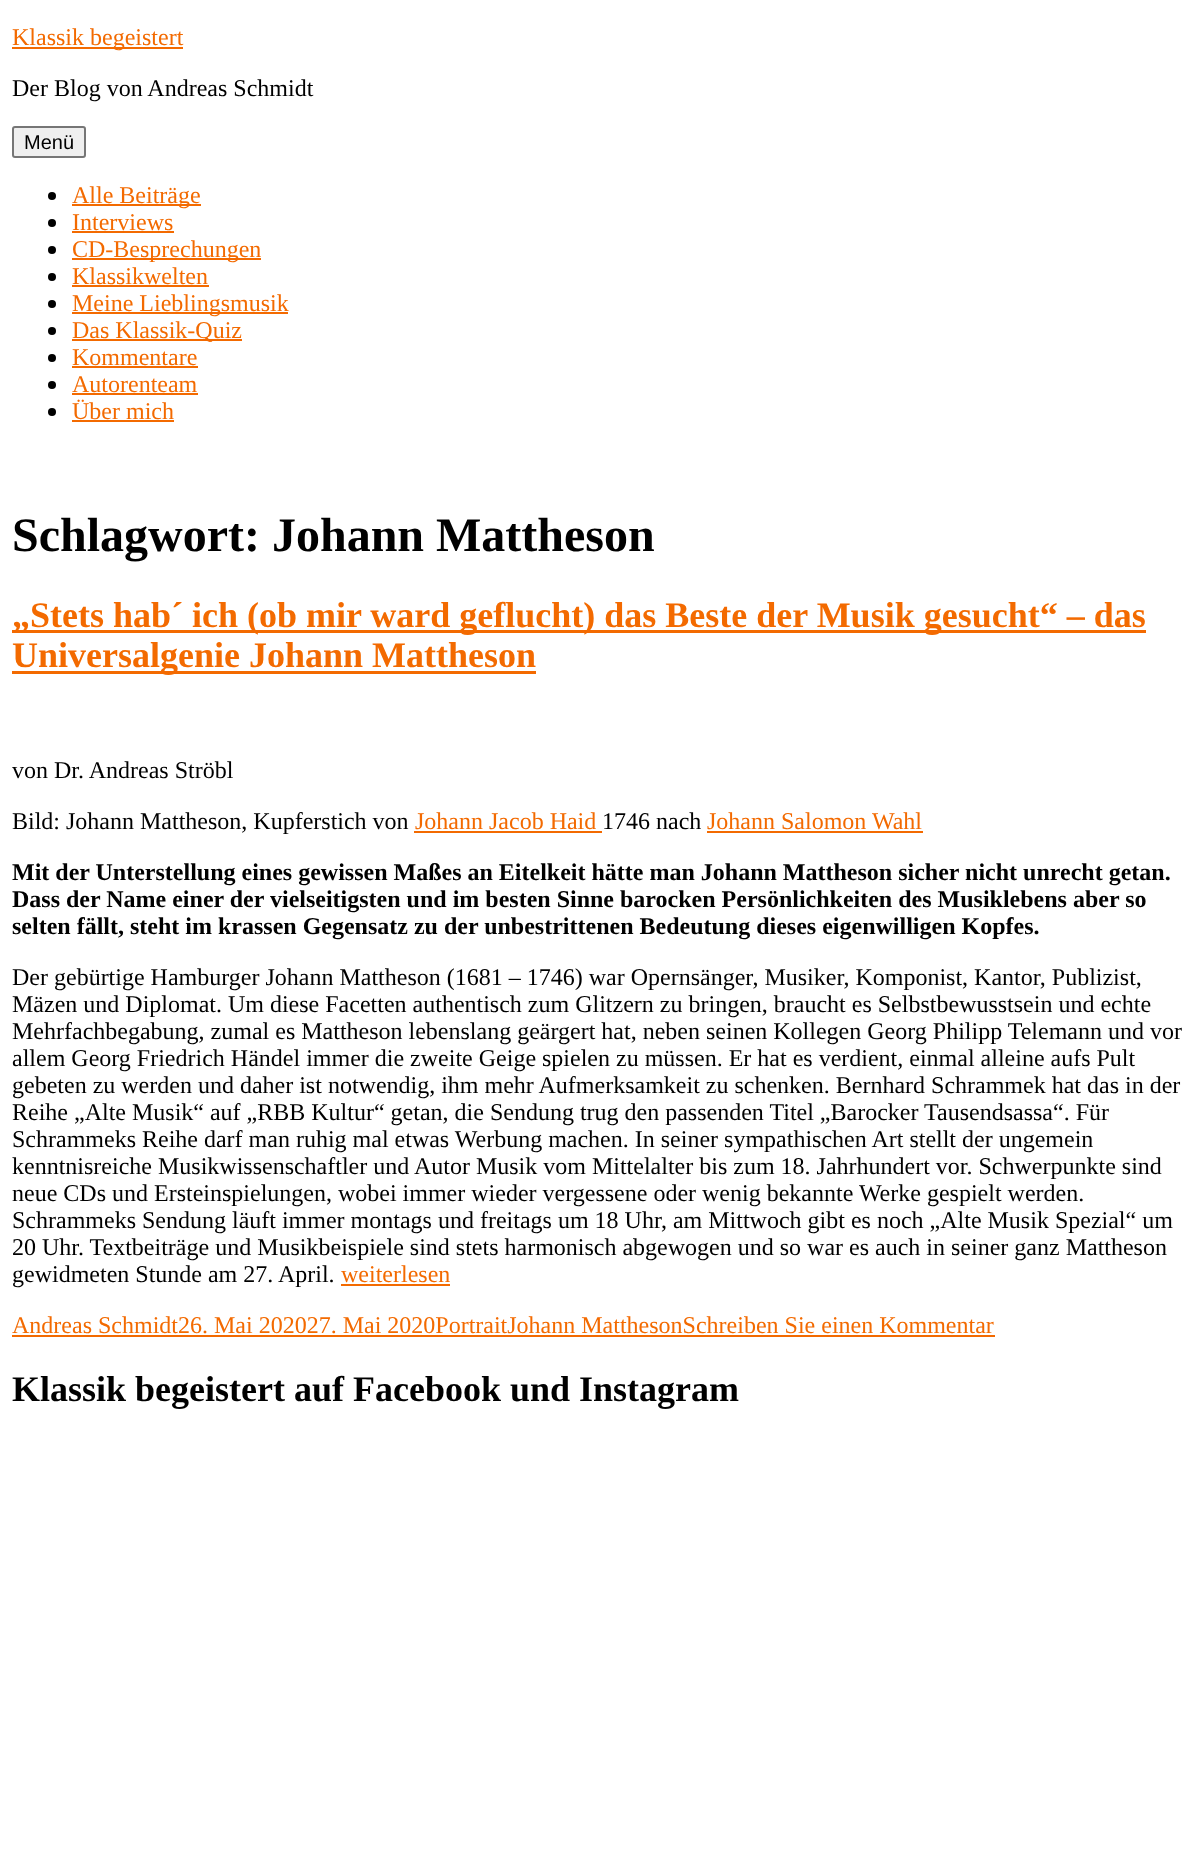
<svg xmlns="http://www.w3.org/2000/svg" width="1197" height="1863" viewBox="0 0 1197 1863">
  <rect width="100%" height="100%" fill="#ffffff"/>
  <rect x="12" y="47" width="171" height="2" fill="#f36a00"/>
  <text x="12" y="45" font-family="Liberation Serif" font-size="24" fill="#f36a00">Klassik begeistert</text>
  <text x="12" y="96" font-family="Liberation Serif" font-size="24" fill="#000000">Der Blog von Andreas Schmidt</text>
  <rect x="13" y="127" width="72" height="30" rx="2" fill="#efefef" stroke="#767676" stroke-width="2"/>
  <text x="24" y="149" font-family="Liberation Sans" font-size="20" fill="#000000">Menü</text>
  <circle cx="52" cy="196" r="4" fill="#000000"/>
  <rect x="72" y="204" width="129" height="2" fill="#f36a00"/>
  <text x="72" y="203" font-family="Liberation Serif" font-size="24" fill="#f36a00">Alle Beiträge</text>
  <circle cx="52" cy="223" r="4" fill="#000000"/>
  <text x="72" y="230" font-family="Liberation Serif" font-size="24" fill="#f36a00">Interviews</text>
  <rect x="72" y="231" width="102" height="2" fill="#f36a00"/>
  <circle cx="52" cy="250" r="4" fill="#000000"/>
  <rect x="72" y="258" width="189" height="2" fill="#f36a00"/>
  <text x="72" y="257" font-family="Liberation Serif" font-size="24" fill="#f36a00">CD-Besprechungen</text>
  <circle cx="52" cy="277" r="4" fill="#000000"/>
  <text x="72" y="284" font-family="Liberation Serif" font-size="24" fill="#f36a00">Klassikwelten</text>
  <rect x="72" y="285" width="137" height="2" fill="#f36a00"/>
  <circle cx="52" cy="304" r="4" fill="#000000"/>
  <rect x="72" y="312" width="216" height="2" fill="#f36a00"/>
  <text x="72" y="311" font-family="Liberation Serif" font-size="24" fill="#f36a00">Meine Lieblingsmusik</text>
  <circle cx="52" cy="331" r="4" fill="#000000"/>
  <rect x="72" y="339" width="170" height="2" fill="#f36a00"/>
  <text x="72" y="338" font-family="Liberation Serif" font-size="24" fill="#f36a00">Das Klassik-Quiz</text>
  <circle cx="52" cy="358" r="4" fill="#000000"/>
  <text x="72" y="365" font-family="Liberation Serif" font-size="24" fill="#f36a00">Kommentare</text>
  <rect x="72" y="366" width="126" height="2" fill="#f36a00"/>
  <circle cx="52" cy="385" r="4" fill="#000000"/>
  <text x="72" y="392" font-family="Liberation Serif" font-size="24" fill="#f36a00">Autorenteam</text>
  <rect x="72" y="393" width="126" height="2" fill="#f36a00"/>
  <circle cx="52" cy="412" r="4" fill="#000000"/>
  <text x="72" y="419" font-family="Liberation Serif" font-size="24" fill="#f36a00">Über mich</text>
  <rect x="72" y="420" width="102" height="2" fill="#f36a00"/>
  <text x="12" y="551" font-family="Liberation Serif" font-size="48" font-weight="bold" fill="#000000">Schlagwort: Johann Mattheson</text>
  <rect x="12" y="630" width="1134" height="3" fill="#f36a00"/>
  <text x="12" y="627" font-family="Liberation Serif" font-size="36" font-weight="bold" fill="#f36a00">„Stets hab´ ich (ob mir ward geflucht) das Beste der Musik gesucht“ – das</text>
  <rect x="12" y="671" width="524" height="3" fill="#f36a00"/>
  <text x="12" y="667" font-family="Liberation Serif" font-size="36" font-weight="bold" fill="#f36a00">Universalgenie Johann Mattheson</text>
  <text x="12" y="778" font-family="Liberation Serif" font-size="24" fill="#000000">von Dr. Andreas Ströbl</text>
  <text x="12" y="829" font-family="Liberation Serif" font-size="24" fill="#000000">Bild: Johann Mattheson, Kupferstich von</text>
  <text x="415" y="829" font-family="Liberation Serif" font-size="24" fill="#f36a00">Johann Jacob Haid</text>
  <rect x="414" y="831" width="188" height="2" fill="#f36a00"/>
  <text x="602" y="829" font-family="Liberation Serif" font-size="24" fill="#000000">1746 nach</text>
  <text x="707" y="829" font-family="Liberation Serif" font-size="24" fill="#f36a00">Johann Salomon Wahl</text>
  <rect x="707" y="831" width="216" height="2" fill="#f36a00"/>
  <text x="12" y="880" font-family="Liberation Serif" font-size="24" font-weight="bold" fill="#000000">Mit der Unterstellung eines gewissen Maßes an Eitelkeit hätte man Johann Mattheson sicher nicht unrecht getan.</text>
  <text x="12" y="907" font-family="Liberation Serif" font-size="24" font-weight="bold" fill="#000000">Dass der Name einer der vielseitigsten und im besten Sinne barocken Persönlichkeiten des Musiklebens aber so</text>
  <text x="12" y="934" font-family="Liberation Serif" font-size="24" font-weight="bold" fill="#000000">selten fällt, steht im krassen Gegensatz zu der unbestrittenen Bedeutung dieses eigenwilligen Kopfes.</text>
  <text x="12" y="985" font-family="Liberation Serif" font-size="24" fill="#000000">Der gebürtige Hamburger Johann Mattheson (1681 – 1746) war Opernsänger, Musiker, Komponist, Kantor, Publizist,</text>
  <text x="12" y="1012" font-family="Liberation Serif" font-size="24" fill="#000000">Mäzen und Diplomat. Um diese Facetten authentisch zum Glitzern zu bringen, braucht es Selbstbewusstsein und echte</text>
  <text x="12" y="1039" font-family="Liberation Serif" font-size="24" fill="#000000">Mehrfachbegabung, zumal es Mattheson lebenslang geärgert hat, neben seinen Kollegen Georg Philipp Telemann und vor</text>
  <text x="12" y="1066" font-family="Liberation Serif" font-size="24" fill="#000000">allem Georg Friedrich Händel immer die zweite Geige spielen zu müssen. Er hat es verdient, einmal alleine aufs Pult</text>
  <text x="12" y="1093" font-family="Liberation Serif" font-size="24" fill="#000000">gebeten zu werden und daher ist notwendig, ihm mehr Aufmerksamkeit zu schenken. Bernhard Schrammek hat das in der</text>
  <text x="12" y="1120" font-family="Liberation Serif" font-size="24" fill="#000000">Reihe „Alte Musik“ auf „RBB Kultur“ getan, die Sendung trug den passenden Titel „Barocker Tausendsassa“. Für</text>
  <text x="12" y="1147" font-family="Liberation Serif" font-size="24" fill="#000000">Schrammeks Reihe darf man ruhig mal etwas Werbung machen. In seiner sympathischen Art stellt der ungemein</text>
  <text x="12" y="1174" font-family="Liberation Serif" font-size="24" fill="#000000">kenntnisreiche Musikwissenschaftler und Autor Musik vom Mittelalter bis zum 18. Jahrhundert vor. Schwerpunkte sind</text>
  <text x="12" y="1201" font-family="Liberation Serif" font-size="24" fill="#000000">neue CDs und Ersteinspielungen, wobei immer wieder vergessene oder wenig bekannte Werke gespielt werden.</text>
  <text x="12" y="1228" font-family="Liberation Serif" font-size="24" fill="#000000">Schrammeks Sendung läuft immer montags und freitags um 18 Uhr, am Mittwoch gibt es noch „Alte Musik Spezial“ um</text>
  <text x="12" y="1255" font-family="Liberation Serif" font-size="24" fill="#000000">20 Uhr. Textbeiträge und Musikbeispiele sind stets harmonisch abgewogen und so war es auch in seiner ganz Mattheson</text>
  <text x="12" y="1282" font-family="Liberation Serif" font-size="24" fill="#000000">gewidmeten Stunde am 27. April.</text>
  <text x="341" y="1282" font-family="Liberation Serif" font-size="24" fill="#f36a00">weiterlesen</text>
  <rect x="341" y="1284" width="109" height="2" fill="#f36a00"/>
  <text x="12" y="1333" font-family="Liberation Serif" font-size="24" fill="#f36a00">Andreas Schmidt26. Mai 202027. Mai 2020PortraitJohann MatthesonSchreiben Sie einen Kommentar</text>
  <rect x="12" y="1335" width="983" height="2" fill="#f36a00"/>
  <text x="12" y="1401" font-family="Liberation Serif" font-size="36" font-weight="bold" fill="#000000">Klassik begeistert auf Facebook und Instagram</text>
</svg>
